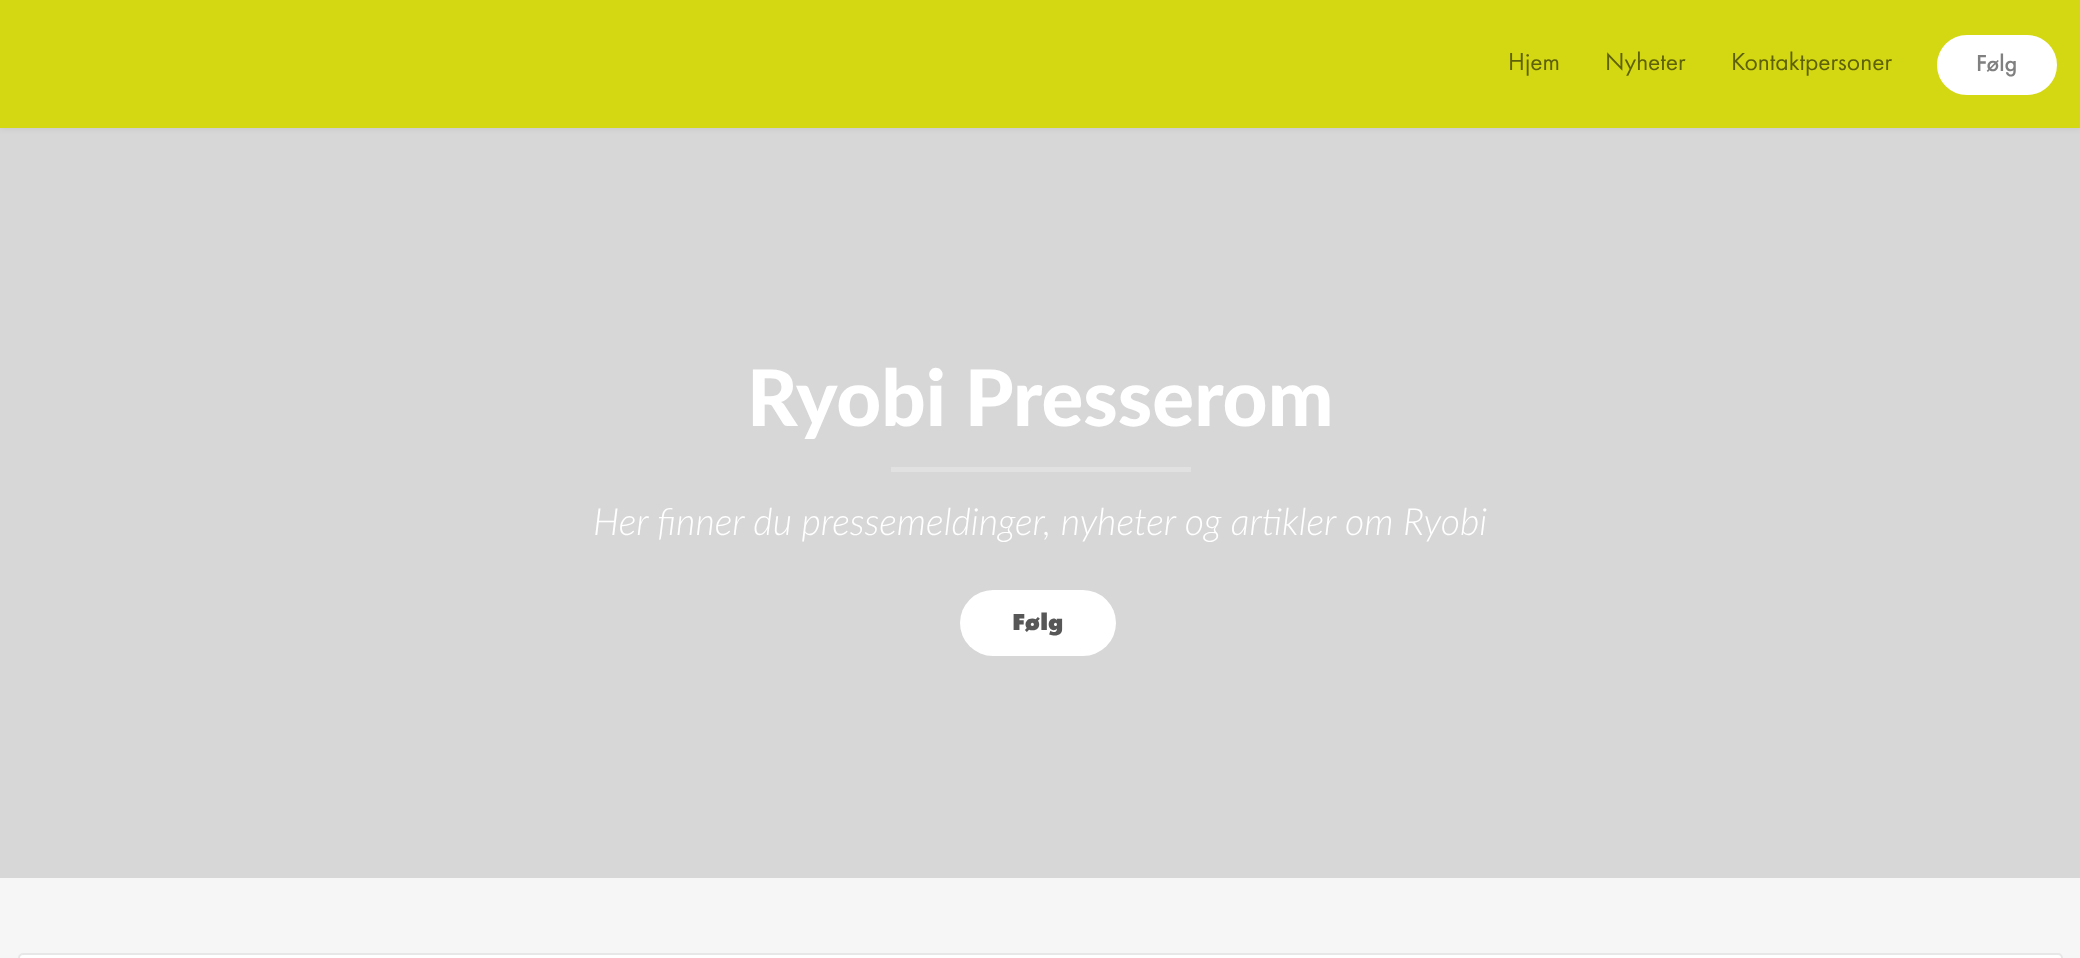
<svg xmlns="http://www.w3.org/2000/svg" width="2080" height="958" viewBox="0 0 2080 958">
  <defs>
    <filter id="blur1" x="-50%" y="-200%" width="200%" height="500%"><feGaussianBlur stdDeviation="3"/></filter>
  </defs>
  <rect width="100%" height="100%" fill="#f6f6f6"/>
  <rect x="0" y="128" width="2080" height="750" fill="#d7d7d7"/>
  <rect x="0" y="0" width="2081" height="128" fill="#000000" fill-opacity="0.1" filter="url(#blur1)"/>
  <rect x="0" y="0" width="2080" height="128" fill="#d3d813"/>
  <text x="1508" y="70" font-family="Futura PT" font-size="25.5" fill="#5f6109">Hjem</text>
  <text x="1605" y="70" font-family="Futura PT" font-size="25.5" fill="#5f6109">Nyheter</text>
  <text x="1731" y="70" font-family="Futura PT" font-size="25.5" fill="#5f6109">Kontaktpersoner</text>
  <rect x="1938.5" y="36.5" width="117" height="57" rx="28.5" fill="#ffffff" stroke="#ffffff" stroke-width="3"/>
  <text x="1976" y="71" font-family="Futura PT" font-size="24" font-weight="500" fill="#808080">Følg</text>
  <text x="747" y="426" font-family="Lato" font-size="78" font-weight="900" fill="#ffffff">Ryobi Presserom</text>
  <rect x="891" y="467" width="300" height="5" fill="#e1e1e1"/>
  <text x="593" y="535" font-family="Lato" font-size="37.5" font-weight="300" font-style="italic" fill="#ffffff">Her finner du pressemeldinger, nyheter og artikler om Ryobi</text>
  <rect x="960" y="590" width="156" height="66" rx="33" fill="#ffffff"/>
  <text x="1012" y="630" font-family="Futura PT" font-size="24" font-weight="800" fill="#575757">Følg</text>
  <rect x="19" y="954" width="2043" height="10" rx="4" fill="#ffffff" stroke="#e7e7e7" stroke-width="2"/>
</svg>
